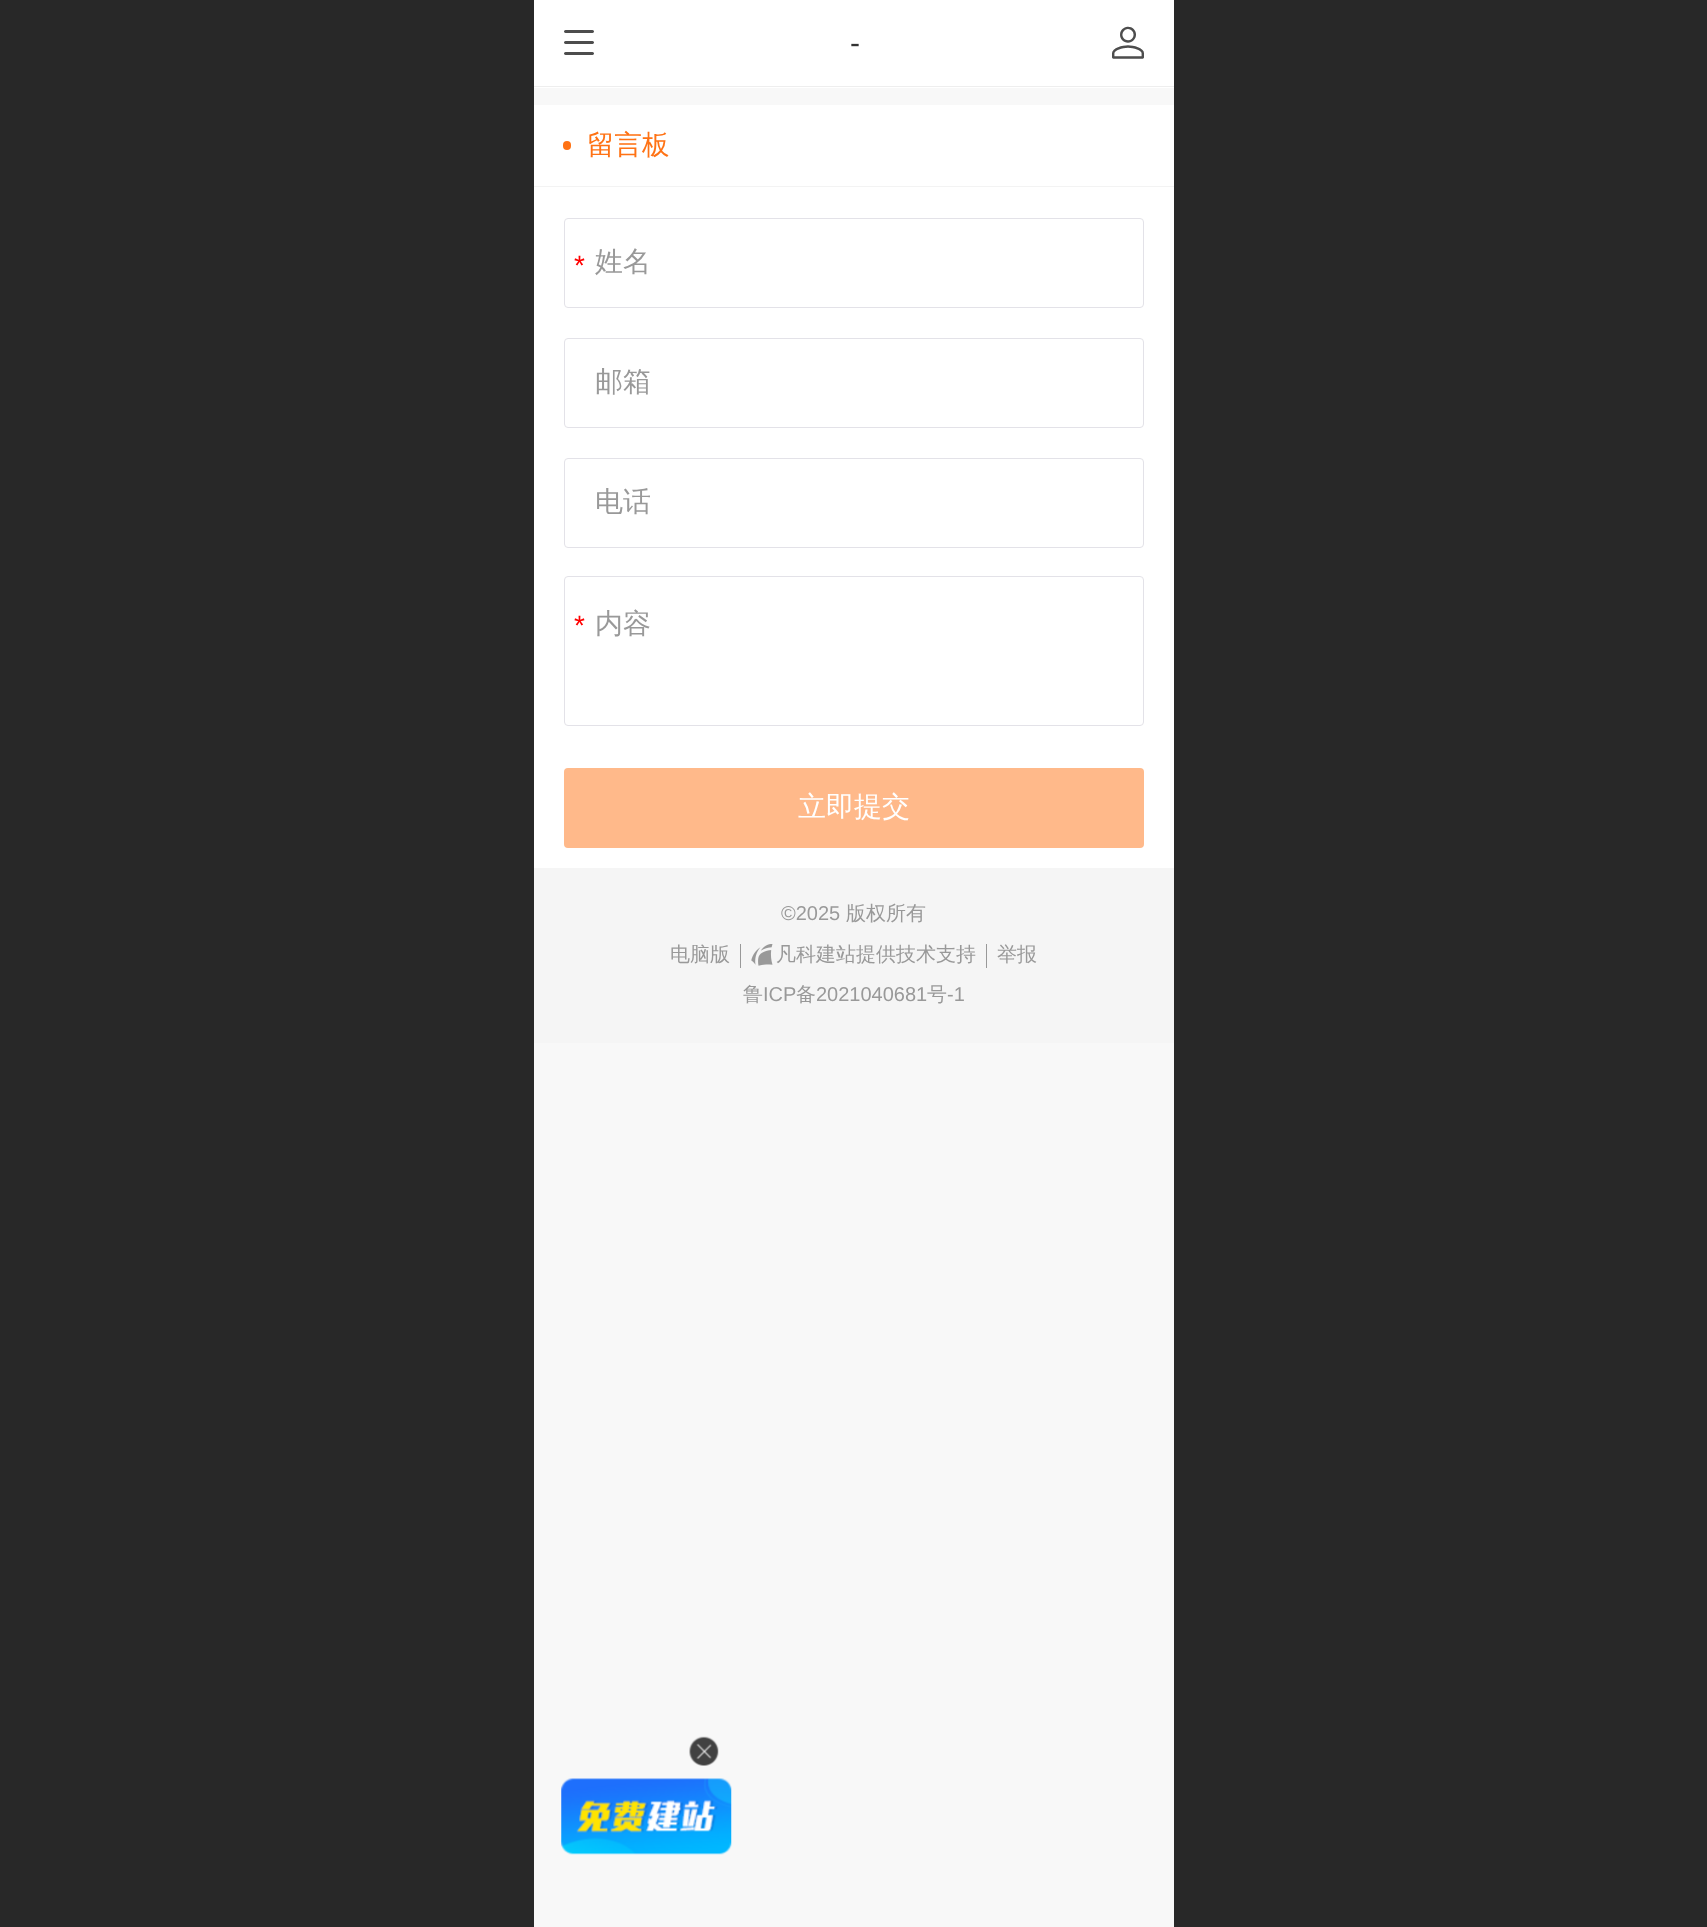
<svg xmlns="http://www.w3.org/2000/svg" width="1707" height="1927" viewBox="0 0 1707 1927">
  <style>*{font-kerning:none!important;font-variant-ligatures:none!important}</style>
  <rect width="100%" height="100%" fill="#f8f8f8"/>
  <rect x="0" y="0" width="534" height="1927" fill="#282828"/>
  <rect x="534" y="0" width="640" height="88" fill="#ffffff"/>
  <text x="564" y="55" font-family="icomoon" font-size="30" fill="#4d4d4d">򰌲</text>
  <rect x="534" y="86" width="640" height="1" fill="#eeeeee"/>
  <text x="850" y="53" font-family="Liberation Sans" font-size="30" fill="#333333">-</text>
  <text x="1112" y="56" font-family="icomoon" font-size="32" fill="#4d4d4d">򰊈</text>
  <rect x="534" y="105" width="640" height="763" fill="#ffffff"/>
  <rect x="534" y="186" width="640" height="1" fill="#f3f3f3"/>
  <rect x="563" y="141" width="8" height="9" rx="4" fill="#ff7214"/>
  <text x="587" y="154" font-family="WenQuanYi Zen Hei" font-size="27.5" font-weight="500" fill="#ff7214">留言板</text>
  <rect x="564.5" y="218.5" width="579" height="89" rx="3.5" fill="none" stroke="#e3e2e8"/>
  <text x="574" y="275" font-family="Liberation Sans" font-size="28" fill="#ff0000">*</text>
  <text x="595" y="271" font-family="WenQuanYi Zen Hei" font-size="28" font-weight="500" fill="#999999">姓名</text>
  <rect x="564.5" y="338.5" width="579" height="89" rx="3.5" fill="none" stroke="#e3e2e8"/>
  <text x="595" y="391" font-family="WenQuanYi Zen Hei" font-size="28" font-weight="500" fill="#999999">邮箱</text>
  <rect x="564.5" y="458.5" width="579" height="89" rx="3.5" fill="none" stroke="#e3e2e8"/>
  <text x="595" y="511" font-family="WenQuanYi Zen Hei" font-size="28" font-weight="500" fill="#999999">电话</text>
  <rect x="564.5" y="576.5" width="579" height="149" rx="3.5" fill="none" stroke="#e3e2e8"/>
  <text x="574" y="635" font-family="Liberation Sans" font-size="28" fill="#ff0000">*</text>
  <text x="595" y="633" font-family="WenQuanYi Zen Hei" font-size="28" font-weight="500" fill="#999999">内容</text>
  <rect x="564" y="768" width="580" height="80" rx="4" fill="#ffb98a"/>
  <text x="798" y="816" font-family="WenQuanYi Zen Hei" font-size="28" font-weight="500" fill="#ffffff">立即提交</text>
  <rect x="534" y="868" width="640" height="175" fill="#f5f5f5"/>
  <text x="781" y="920" font-family="Liberation Sans" font-size="20" fill="#999999">©2025</text>
  <text x="846" y="920" font-family="WenQuanYi Zen Hei" font-size="20" font-weight="500" fill="#999999">版权所有</text>
  <text x="670" y="961" font-family="WenQuanYi Zen Hei" font-size="20" font-weight="500" fill="#999999">电脑版</text>
  <rect x="740" y="944" width="1" height="24" fill="#999999"/>
  <image x="751" y="944" width="22" height="22" href="img1.png"/>
  <text x="776" y="961" font-family="WenQuanYi Zen Hei" font-size="20" font-weight="500" fill="#999999">凡科建站提供技术支持</text>
  <rect x="986" y="944" width="1" height="24" fill="#999999"/>
  <text x="997" y="961" font-family="WenQuanYi Zen Hei" font-size="20" font-weight="500" fill="#999999">举报</text>
  <text x="743" y="1001" font-family="WenQuanYi Zen Hei" font-size="20" font-weight="500" fill="#999999">鲁</text>
  <text x="763" y="1001" font-family="Liberation Sans" font-size="20" fill="#999999">ICP</text>
  <text x="796" y="1001" font-family="WenQuanYi Zen Hei" font-size="20" font-weight="500" fill="#999999">备</text>
  <text x="816" y="1001" font-family="Liberation Sans" font-size="20" fill="#999999">2021040681</text>
  <text x="927" y="1001" font-family="WenQuanYi Zen Hei" font-size="20" font-weight="500" fill="#999999">号</text>
  <text x="947" y="1001" font-family="Liberation Sans" font-size="20" fill="#999999">-1</text>
  <image x="689" y="1736" width="30" height="30" href="img2.png"/>
  <image x="561" y="1778" width="171" height="77" href="img3.png"/>
  <rect x="1174" y="0" width="533" height="1927" fill="#282828"/>
</svg>
